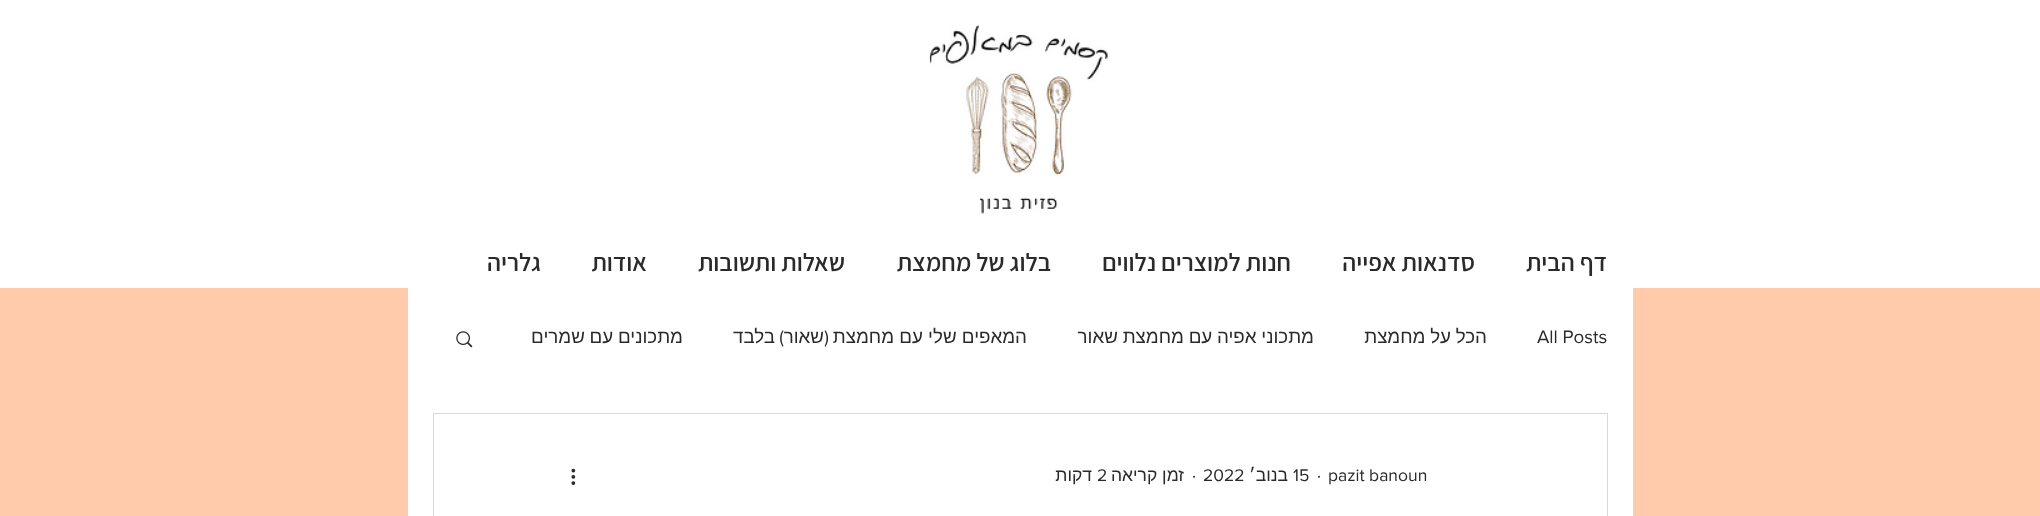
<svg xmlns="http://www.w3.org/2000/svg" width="2040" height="516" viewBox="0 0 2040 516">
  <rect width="100%" height="100%" fill="#ffcbaa"/>
  <rect x="0" y="0" width="2040" height="288" fill="#ffffff"/>
  <image x="929" y="24" width="179" height="190" href="img1.png"/>
  <text x="1607" y="271" font-family="Assistant" font-size="25" font-weight="600" direction="rtl" fill="#2a2a2a">דף הבית</text>
  <text x="1475" y="271" font-family="Assistant" font-size="25" font-weight="600" direction="rtl" fill="#2a2a2a">סדנאות אפייה</text>
  <text x="1291" y="271" font-family="Assistant" font-size="25" font-weight="600" direction="rtl" fill="#2a2a2a">חנות למוצרים נלווים</text>
  <text x="1051" y="271" font-family="Assistant" font-size="25" font-weight="600" direction="rtl" fill="#2a2a2a">בלוג של מחמצת</text>
  <text x="845" y="271" font-family="Assistant" font-size="25" font-weight="600" direction="rtl" fill="#2a2a2a">שאלות ותשובות</text>
  <text x="647" y="271" font-family="Assistant" font-size="25" font-weight="600" direction="rtl" fill="#2a2a2a">אודות</text>
  <text x="541" y="271" font-family="Assistant" font-size="25" font-weight="600" direction="rtl" fill="#2a2a2a">גלריה</text>
  <rect x="408" y="288" width="1225" height="228" fill="#ffffff"/>
  <text x="1537" y="343" font-family="'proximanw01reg'" font-size="18.75" fill="#2a2a2a">All Posts</text>
  <text x="1487" y="343" word-spacing="-0.5" font-family="Liberation Sans" font-size="18.75" direction="rtl" fill="#2a2a2a">הכל על מחמצת</text>
  <text x="1314" y="343" word-spacing="-0.5" font-family="Liberation Sans" font-size="18.75" direction="rtl" fill="#2a2a2a">מתכוני אפיה עם מחמצת שאור</text>
  <text x="1027" y="343" font-family="Liberation Sans" font-size="18.75" direction="rtl" fill="#2a2a2a">המאפים שלי עם מחמצת</text>
  <text x="829" y="343" font-family="'proximanw01reg'" font-size="18.75" direction="rtl" fill="#2a2a2a">(</text>
  <text x="824" y="343" font-family="Liberation Sans" font-size="18.75" direction="rtl" fill="#2a2a2a">שאור</text>
  <text x="784" y="343" font-family="'proximanw01reg'" font-size="18.75" direction="rtl" fill="#2a2a2a">)</text>
  <text x="775" y="343" font-family="Liberation Sans" font-size="18.75" direction="rtl" fill="#2a2a2a">בלבד</text>
  <text x="683" y="343" word-spacing="-0.5" font-family="Liberation Sans" font-size="18.75" direction="rtl" fill="#2a2a2a">מתכונים עם שמרים</text>
  <image x="456" y="331" width="17" height="17" href="img2.png"/>
  <rect x="433.5" y="413.5" width="1174" height="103" fill="none" stroke="#d9d9d9"/>
  <text x="1328" y="481" font-family="'proximanw01reg'" font-size="17.5" fill="#2a2a2a">pazit banoun</text>
  <text x="1317" y="481" font-family="'proximanw01reg'" font-size="17.5" fill="#2a2a2a">·</text>
  <text x="1293" y="481" font-family="'proximanw01reg'" font-size="17.5" fill="#2a2a2a">15</text>
  <text x="1288" y="481" font-family="Liberation Sans" font-size="17.5" direction="rtl" fill="#2a2a2a">בנוב׳</text>
  <text x="1203" y="481" font-family="'proximanw01reg'" font-size="17.5" fill="#2a2a2a">2022</text>
  <text x="1192" y="481" font-family="'proximanw01reg'" font-size="17.5" fill="#2a2a2a">·</text>
  <text x="1184" y="481" font-family="Liberation Sans" font-size="17.5" direction="rtl" fill="#2a2a2a">זמן קריאה</text>
  <text x="1097" y="481" font-family="'proximanw01reg'" font-size="17.5" fill="#2a2a2a">2</text>
  <text x="1092" y="481" font-family="Liberation Sans" font-size="17.5" direction="rtl" fill="#2a2a2a">דקות</text>
  <image x="571" y="468" width="5" height="17" href="img3.png"/>
</svg>
